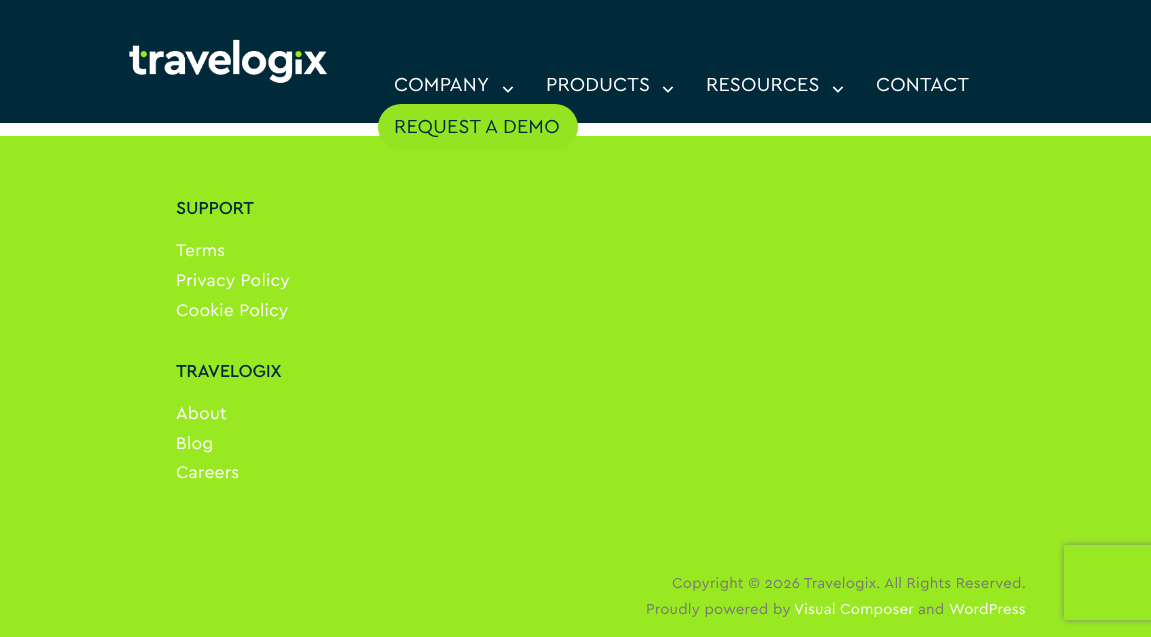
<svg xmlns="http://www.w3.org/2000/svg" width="1151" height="637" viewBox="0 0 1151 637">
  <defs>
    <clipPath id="clip1"><path d="M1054 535H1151V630H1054ZM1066.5 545H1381.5C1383 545 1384 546 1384 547.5V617.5C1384 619 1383 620 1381.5 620H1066.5C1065 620 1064 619 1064 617.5V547.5C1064 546 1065 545 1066.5 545Z" clip-rule="evenodd"/></clipPath>
  </defs>
  <rect width="100%" height="100%" fill="rgb(255,255,255)"/>
  <rect x="0" y="0" width="1151" height="123" fill="rgb(0,42,58)"/>
  <image x="129" y="39" width="198" height="44" href="pic1.png"/>
  <text x="394" y="91" font-family="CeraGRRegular" font-size="19.75" letter-spacing="0.2" fill="rgb(255,255,255)">COMPANY</text>
  <image x="502" y="86" width="12" height="7" href="pic2.png"/>
  <text x="546" y="91" font-family="CeraGRRegular" font-size="19.75" letter-spacing="0.2" fill="rgb(255,255,255)">PRODUCTS</text>
  <image x="662" y="86" width="12" height="7" href="pic2.png"/>
  <text x="706" y="91" font-family="CeraGRRegular" font-size="19.75" letter-spacing="0.2" fill="rgb(255,255,255)">RESOURCES</text>
  <image x="832" y="86" width="12" height="7" href="pic2.png"/>
  <text x="876" y="91" font-family="CeraGRRegular" font-size="19.75" letter-spacing="0.2" fill="rgb(255,255,255)">CONTACT</text>
  <rect x="0" y="136" width="1151" height="501" fill="rgb(153,233,34)"/>
  <rect x="378" y="104" width="200" height="46" rx="23" fill="rgb(148,228,33)"/>
  <text x="394" y="133" font-family="CeraGRRegular" font-size="19.75" letter-spacing="0.2" fill="rgb(0,42,58)">REQUEST A DEMO</text>
  <text x="176" y="214" font-family="CeraGRRegular" font-size="17.5" font-weight="bold" letter-spacing="0.2" fill="rgb(0,42,58)">SUPPORT</text>
  <g font-family="CeraGRRegular" font-size="17.5" letter-spacing="0.2" fill="rgb(255,255,255)">
    <text>
      <tspan x="176" y="256">Terms</tspan>
      <tspan x="176" y="286">Privacy Policy</tspan>
      <tspan x="176" y="316">Cookie Policy</tspan>
    </text>
  </g>
  <text x="176" y="377" font-family="CeraGRRegular" font-size="17.5" font-weight="bold" letter-spacing="0.2" fill="rgb(0,42,58)">TRAVELOGIX</text>
  <g font-family="CeraGRRegular" font-size="17.5" letter-spacing="0.2" fill="rgb(255,255,255)">
    <text>
      <tspan x="176" y="419">About</tspan>
      <tspan x="176" y="449">Blog</tspan>
      <tspan x="176" y="478">Careers</tspan>
    </text>
  </g>
  <g font-family="CeraGRRegular" font-size="15" letter-spacing="0.2" fill="rgb(119,119,119)">
    <text x="672" y="588">Copyright © 2026 Travelogix. All Rights Reserved.</text>
    <text x="646" y="614">Proudly powered by</text>
  </g>
  <text x="794" y="614" font-family="CeraGRRegular" font-size="15" letter-spacing="0.2" fill="rgb(255,255,255)">Visual Composer</text>
  <text x="918" y="614" font-family="CeraGRRegular" font-size="15" letter-spacing="0.2" fill="rgb(119,119,119)">and</text>
  <text x="949" y="614" font-family="CeraGRRegular" font-size="15" letter-spacing="0.2" fill="rgb(255,255,255)">WordPress</text>
  <g clip-path="url(#clip1)">
    <rect x="1064" y="545" width="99" height="75" rx="2.5" fill="rgb(128,128,128)" filter="blur(3px)"/>
  </g>
</svg>
